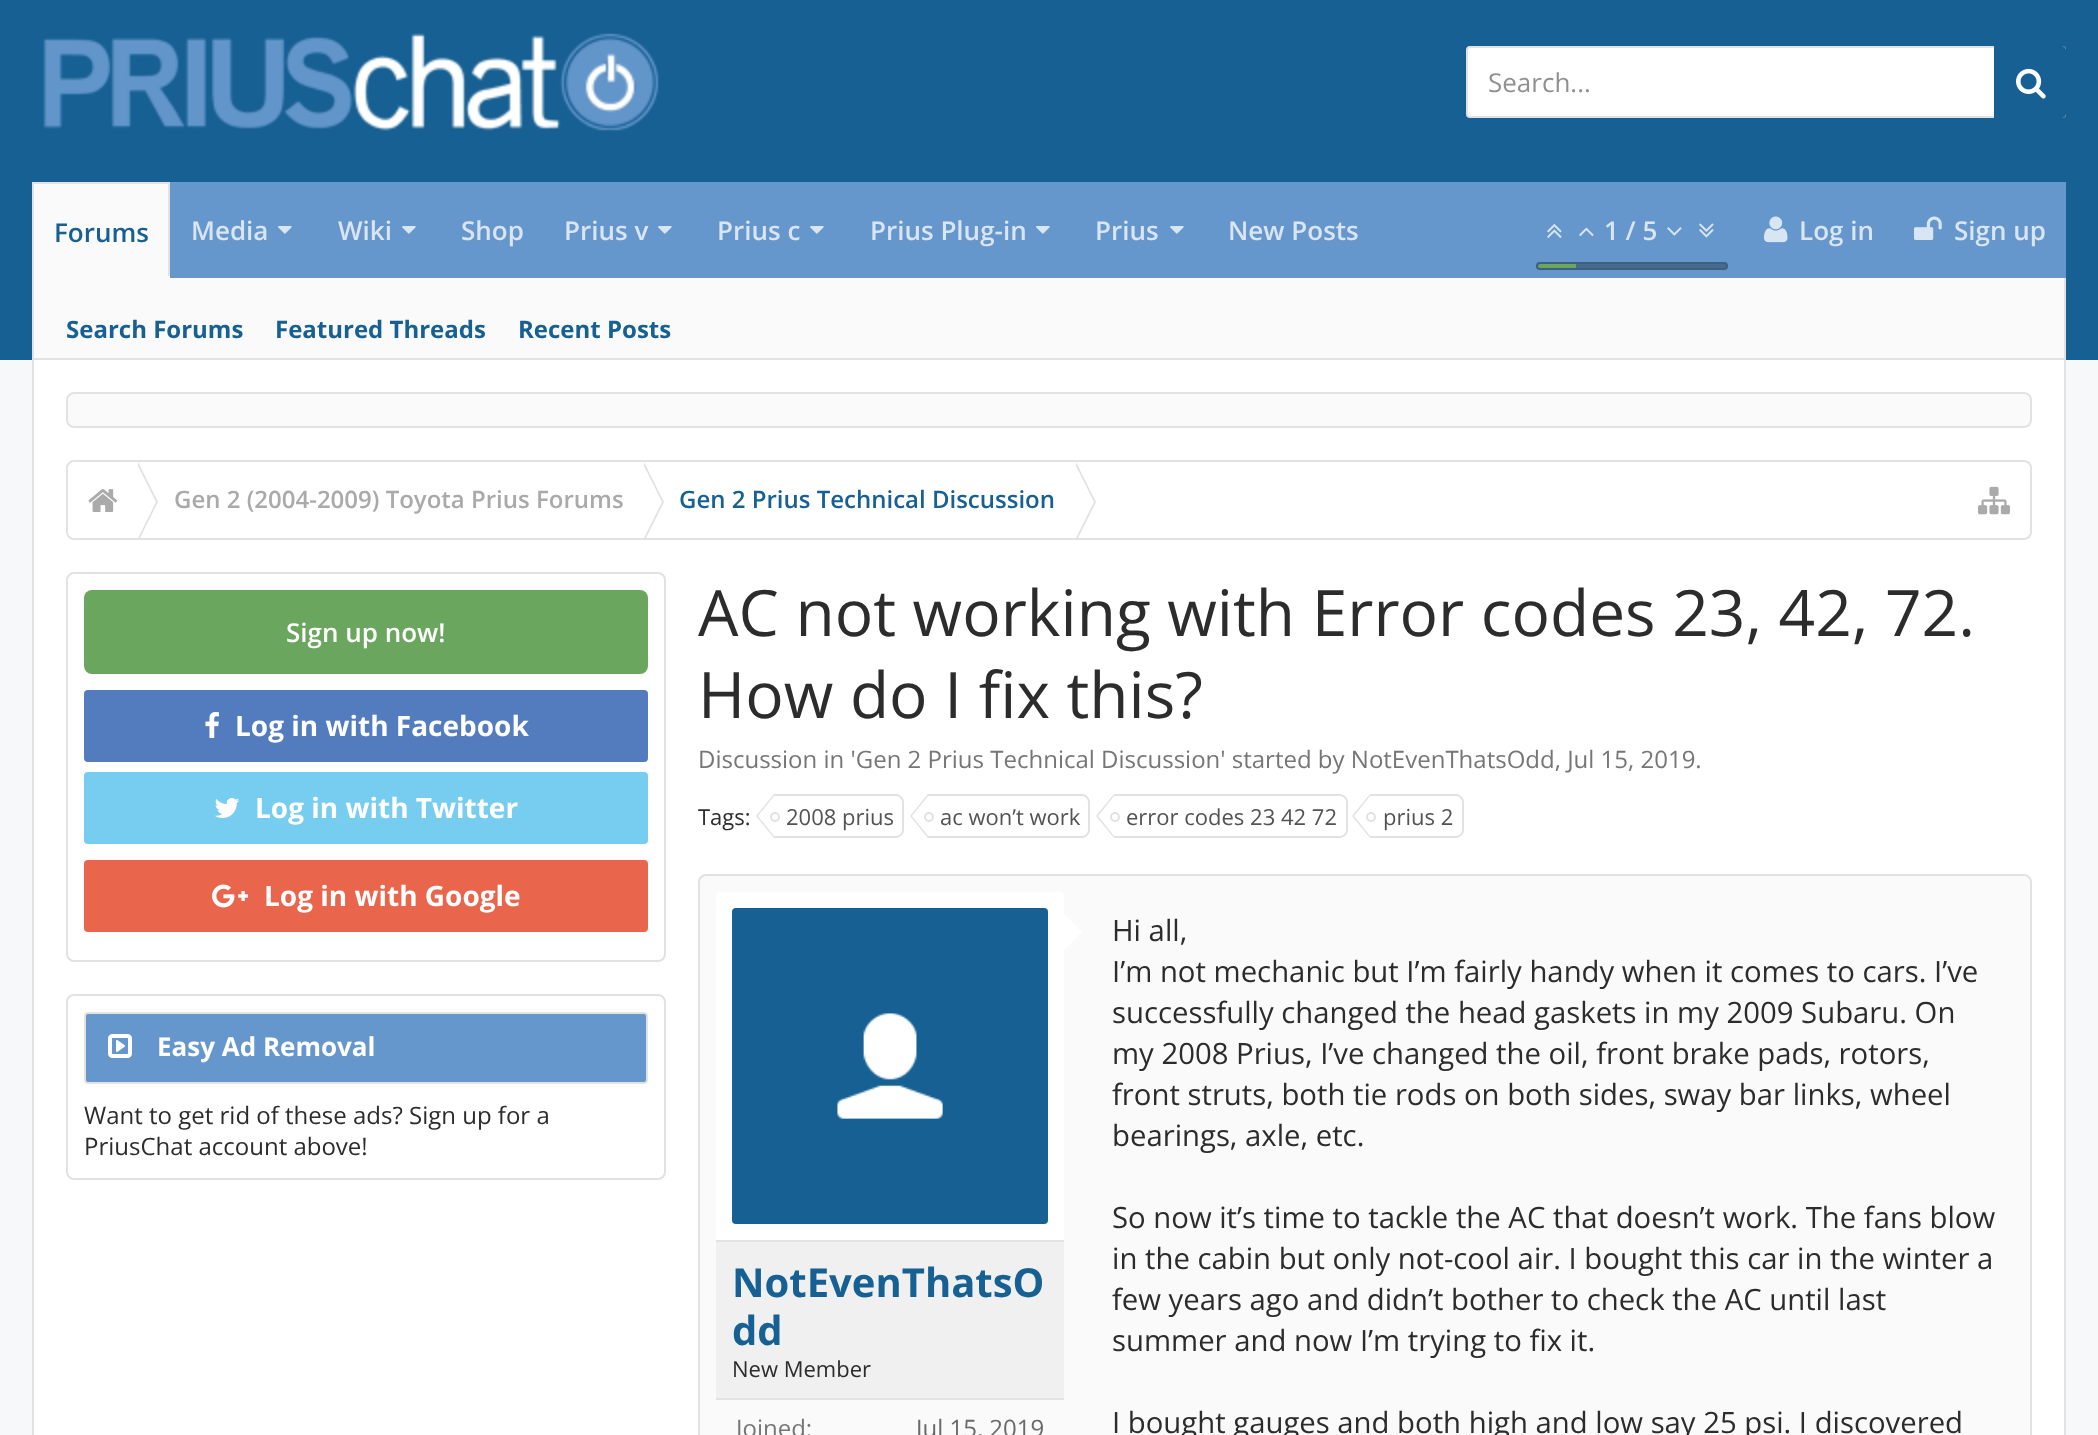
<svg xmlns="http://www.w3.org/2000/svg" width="2098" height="1435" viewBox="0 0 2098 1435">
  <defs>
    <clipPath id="clip1"><rect x="68" y="462" width="1962" height="76" rx="6"/></clipPath>
  </defs>
  <rect width="100%" height="100%" fill="rgb(246,248,249)"/>
  <rect x="0" y="0" width="2098" height="360" fill="rgb(23,96,147)"/>
  <image x="43" y="33" width="616" height="98" href="pic1.png"/>
  <rect x="1467" y="47" width="598" height="70" rx="3" fill="rgb(255,255,255)" stroke="rgb(226,226,226)" stroke-width="2"/>
  <text x="1488" y="92" font-family="Open Sans" font-size="26" fill="rgb(144,144,144)">Search...</text>
  <path d="M1994 46H2062C2064 46 2066 48 2066 50V114C2066 116 2064 118 2062 118H1994Z" fill="rgb(23,96,147)"/>
  <image x="2016" y="68" width="30" height="31" href="pic2.png"/>
  <rect x="170" y="182" width="1896" height="96" fill="rgb(101,151,204)"/>
  <text x="191" y="240" font-family="Open Sans" font-size="26" font-weight="600" fill="rgb(217,229,242)">Media</text>
  <image x="278" y="226" width="14" height="8" href="pic3.png"/>
  <text x="338" y="240" font-family="Open Sans" font-size="26" font-weight="600" fill="rgb(217,229,242)">Wiki</text>
  <image x="402" y="226" width="14" height="8" href="pic3.png"/>
  <g font-family="Open Sans" font-size="26" font-weight="600" fill="rgb(217,229,242)">
    <text x="461" y="240">Shop</text>
    <text x="564" y="240">Prius v</text>
  </g>
  <image x="658" y="226" width="14" height="8" href="pic3.png"/>
  <text x="717" y="240" font-family="Open Sans" font-size="26" font-weight="600" fill="rgb(217,229,242)">Prius c</text>
  <image x="810" y="226" width="14" height="8" href="pic3.png"/>
  <text x="870" y="240" font-family="Open Sans" font-size="26" font-weight="600" fill="rgb(217,229,242)">Prius Plug-in</text>
  <image x="1036" y="226" width="14" height="8" href="pic3.png"/>
  <text x="1095" y="240" font-family="Open Sans" font-size="26" font-weight="600" fill="rgb(217,229,242)">Prius</text>
  <image x="1170" y="226" width="14" height="8" href="pic3.png"/>
  <text x="1228" y="240" font-family="Open Sans" font-size="26" font-weight="600" fill="rgb(217,229,242)">New Posts</text>
  <rect x="34" y="184" width="134" height="92" fill="rgb(250,250,250)"/>
  <rect x="32" y="182" width="138" height="2" fill="rgb(226,226,226)"/>
  <rect x="168" y="182" width="2" height="96" fill="rgb(226,226,226)"/>
  <rect x="32" y="276" width="138" height="2" fill="rgb(250,250,250)"/>
  <rect x="32" y="182" width="2" height="96" fill="rgb(226,226,226)"/>
  <text x="54" y="242" font-family="Open Sans" font-size="26" font-weight="600" fill="rgb(23,96,147)">Forums</text>
  <rect x="34" y="278" width="2030" height="80" fill="rgb(250,250,250)"/>
  <rect x="2064" y="278" width="2" height="1157" fill="rgb(226,226,226)"/>
  <rect x="32" y="358" width="2034" height="2" fill="rgb(226,226,226)"/>
  <rect x="32" y="278" width="2" height="82" fill="rgb(226,226,226)"/>
  <g font-family="Open Sans" font-size="24" font-weight="bold" fill="rgb(23,96,147)">
    <text x="66" y="338">Search Forums</text>
    <text x="275" y="338">Featured Threads</text>
    <text x="518" y="338">Recent Posts</text>
  </g>
  <image x="1547" y="224" width="15" height="14" href="pic4.png"/>
  <image x="1579" y="227" width="15" height="9" href="pic5.png"/>
  <text x="1604" y="240" font-family="Open Sans" font-size="26" font-weight="600" fill="rgb(217,229,242)">1 / 5</text>
  <image x="1667" y="227" width="15" height="9" href="pic6.png"/>
  <image x="1699" y="223" width="15" height="15" href="pic7.png"/>
  <rect x="1536" y="262" width="192" height="8" rx="4" fill="rgb(71,106,143)"/>
  <rect x="1537" y="263" width="190" height="6" rx="3" fill="none" stroke="rgba(0,0,0,0.1)" stroke-width="2"/>
  <path d="M1540 264H1576V268H1540C1539 268 1538 267 1538 266C1538 265 1539 264 1540 264Z" fill="rgb(107,166,94)"/>
  <image x="1764" y="216" width="24" height="27" href="pic8.png"/>
  <text x="1799" y="240" font-family="Open Sans" font-size="26" font-weight="600" fill="rgb(217,229,242)">Log in</text>
  <image x="1914" y="216" width="28" height="24" href="pic9.png"/>
  <text x="1954" y="240" font-family="Open Sans" font-size="26" font-weight="600" fill="rgb(217,229,242)">Sign up</text>
  <rect x="34" y="360" width="2030" height="1075" fill="rgb(255,255,255)"/>
  <rect x="32" y="360" width="2" height="1075" fill="rgb(226,226,226)"/>
  <rect x="67" y="393" width="1964" height="34" rx="7" fill="rgb(250,250,250)" stroke="rgb(226,226,226)" stroke-width="2"/>
  <rect x="67" y="461" width="1964" height="78" rx="7" fill="none" stroke="rgb(226,226,226)" stroke-width="2"/>
  <g clip-path="url(#clip1)">
    <path d="M76 462H138V540H76C71.5 540 68 536.5 68 532V470C68 465.5 71.5 462 76 462Z" fill="rgb(255,255,255)"/>
  </g>
  <image x="88" y="489" width="30" height="23" href="pic10.png"/>
  <path d="M140 538H138V462L158 502Z" fill="rgb(226,226,226)"/>
  <path d="M138 538H136V462L156 502Z" fill="rgb(255,255,255)"/>
  <text x="174" y="508" font-family="Open Sans" font-size="24" font-weight="600" fill="rgb(170,170,170)">Gen 2 (2004-2009) Toyota Prius Forums</text>
  <path d="M646 538H644V462L664 502Z" fill="rgb(226,226,226)"/>
  <path d="M644 538H642V462L662 502Z" fill="rgb(255,255,255)"/>
  <text x="679" y="508" font-family="Open Sans" font-size="24" font-weight="600" fill="rgb(23,96,147)">Gen 2 Prius Technical Discussion</text>
  <path d="M1078 538H1076V462L1096 502Z" fill="rgb(226,226,226)"/>
  <path d="M1076 538H1074V462L1094 502Z" fill="rgb(255,255,255)"/>
  <image x="1978" y="486" width="32" height="29" href="pic11.png"/>
  <rect x="67" y="573" width="598" height="388" rx="7" fill="none" stroke="rgb(226,226,226)" stroke-width="2"/>
  <rect x="84" y="590" width="564" height="84" rx="8" fill="rgb(107,166,94)"/>
  <text x="286" y="642" font-family="Open Sans" font-size="26" font-weight="600" fill="rgb(255,255,255)">Sign up now!</text>
  <rect x="84" y="690" width="564" height="72" rx="4" fill="rgb(83,124,190)"/>
  <image x="205" y="712" width="14" height="26" href="pic12.png"/>
  <text x="235" y="736" font-family="Open Sans" font-size="28" font-weight="bold" fill="rgb(255,255,255)">Log in with Facebook</text>
  <rect x="84" y="772" width="564" height="72" rx="4" fill="rgb(119,205,240)"/>
  <image x="215" y="798" width="25" height="20" href="pic13.png"/>
  <text x="255" y="818" font-family="Open Sans" font-size="28" font-weight="bold" fill="rgb(255,255,255)">Log in with Twitter</text>
  <rect x="84" y="860" width="564" height="72" rx="4" fill="rgb(233,101,76)"/>
  <image x="212" y="884" width="36" height="24" href="pic14.png"/>
  <text x="264" y="906" font-family="Open Sans" font-size="28" font-weight="bold" fill="rgb(255,255,255)">Log in with Google</text>
  <rect x="67" y="995" width="598" height="184" rx="7" fill="none" stroke="rgb(226,226,226)" stroke-width="2"/>
  <rect x="85" y="1013" width="562" height="70" rx="3" fill="rgb(101,151,204)" stroke="rgb(226,226,226)" stroke-width="2"/>
  <image x="108" y="1034" width="24" height="24" href="pic15.png"/>
  <text x="157" y="1056" font-family="Open Sans" font-size="26" font-weight="bold" fill="rgb(255,255,255)">Easy Ad Removal</text>
  <g font-family="Open Sans" font-size="24" fill="rgb(44,44,44)">
    <text>
      <tspan x="84" y="1124">Want to get rid of these ads? Sign up for a</tspan>
      <tspan x="84" y="1155">PriusChat account above!</tspan>
    </text>
  </g>
  <g font-family="Open Sans" font-size="64" fill="rgb(44,44,44)">
    <text>
      <tspan x="698" y="636">AC not working with Error codes 23, 42, 72.</tspan>
      <tspan x="698" y="718">How do I fix this?</tspan>
    </text>
  </g>
  <text x="698" y="768" font-family="Open Sans" font-size="24" fill="rgb(118,118,118)">Discussion in 'Gen 2 Prius Technical Discussion' started by NotEvenThatsOdd, Jul 15, 2019.</text>
  <text x="698" y="825" font-family="Open Sans" font-size="22" fill="rgb(44,44,44)">Tags:</text>
  <path d="M774 794H896C900 794 904 798 904 802V830C904 834 900 838 896 838H774ZM774 796H896C899 796 902 799 902 802V830C902 833 899 836 896 836H774Z" fill="rgb(226,226,226)" fill-rule="evenodd"/>
  <path d="M774 794V838L756 816Z" fill="rgb(226,226,226)"/>
  <path d="M774 796V836L758 816Z" fill="rgb(255,255,255)"/>
  <circle cx="775" cy="817" r="4" fill="none" stroke="rgb(226,226,226)" stroke-width="2"/>
  <text x="786" y="825" font-family="Open Sans" font-size="22" fill="rgb(83,83,83)">2008 prius</text>
  <path d="M928 794H1082C1086 794 1090 798 1090 802V830C1090 834 1086 838 1082 838H928ZM928 796H1082C1085 796 1088 799 1088 802V830C1088 833 1085 836 1082 836H928Z" fill="rgb(226,226,226)" fill-rule="evenodd"/>
  <path d="M928 794V838L910 816Z" fill="rgb(226,226,226)"/>
  <path d="M928 796V836L912 816Z" fill="rgb(255,255,255)"/>
  <circle cx="929" cy="817" r="4" fill="none" stroke="rgb(226,226,226)" stroke-width="2"/>
  <text x="940" y="825" font-family="Open Sans" font-size="22" fill="rgb(83,83,83)">ac won’t work</text>
  <path d="M1114 794H1340C1344 794 1348 798 1348 802V830C1348 834 1344 838 1340 838H1114ZM1114 796H1340C1343 796 1346 799 1346 802V830C1346 833 1343 836 1340 836H1114Z" fill="rgb(226,226,226)" fill-rule="evenodd"/>
  <path d="M1114 794V838L1096 816Z" fill="rgb(226,226,226)"/>
  <path d="M1114 796V836L1098 816Z" fill="rgb(255,255,255)"/>
  <circle cx="1115" cy="817" r="4" fill="none" stroke="rgb(226,226,226)" stroke-width="2"/>
  <text x="1126" y="825" font-family="Open Sans" font-size="22" fill="rgb(83,83,83)">error codes 23 42 72</text>
  <path d="M1370 794H1456C1460 794 1464 798 1464 802V830C1464 834 1460 838 1456 838H1370ZM1370 796H1456C1459 796 1462 799 1462 802V830C1462 833 1459 836 1456 836H1370Z" fill="rgb(226,226,226)" fill-rule="evenodd"/>
  <path d="M1370 794V838L1352 816Z" fill="rgb(226,226,226)"/>
  <path d="M1370 796V836L1354 816Z" fill="rgb(255,255,255)"/>
  <circle cx="1371" cy="817" r="4" fill="none" stroke="rgb(226,226,226)" stroke-width="2"/>
  <text x="1383" y="825" font-family="Open Sans" font-size="22" fill="rgb(83,83,83)">prius 2</text>
  <rect x="699" y="875" width="1332" height="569" rx="7" fill="rgb(250,250,250)" stroke="rgb(226,226,226)" stroke-width="2"/>
  <path d="M720 892H1060C1062 892 1064 894 1064 896V1240H716V896C716 894 718 892 720 892Z" fill="rgb(255,255,255)"/>
  <rect x="732" y="908" width="316" height="316" rx="4" fill="rgb(23,96,147)"/>
  <image x="837" y="1013" width="106" height="106" href="pic16.png"/>
  <path d="M1062 952V912L1082 932Z" fill="rgb(255,255,255)"/>
  <rect x="716" y="1242" width="348" height="156" fill="rgb(240,240,240)"/>
  <rect x="716" y="1240" width="348" height="2" fill="rgb(226,226,226)"/>
  <rect x="716" y="1398" width="348" height="2" fill="rgb(226,226,226)"/>
  <g font-family="Open Sans" font-size="40" font-weight="bold" fill="rgb(23,96,147)">
    <text>
      <tspan x="732" y="1297">NotEvenThatsO</tspan>
      <tspan x="732" y="1345">dd</tspan>
    </text>
  </g>
  <text x="732" y="1377" font-family="Open Sans" font-size="22" fill="rgb(44,44,44)">New Member</text>
  <text x="736" y="1437" font-family="Open Sans" font-size="24" fill="rgb(118,118,118)">Joined:</text>
  <text x="916" y="1437" font-family="Open Sans" font-size="24" fill="rgb(106,106,106)">Jul 15, 2019</text>
  <g font-family="Open Sans" font-size="29.3" fill="rgb(44,44,44)">
    <text>
      <tspan x="1112" y="941">Hi all,</tspan>
      <tspan x="1112" y="982">I’m not mechanic but I’m fairly handy when it comes to cars. I’ve</tspan>
      <tspan x="1112" y="1023">successfully changed the head gaskets in my 2009 Subaru. On</tspan>
      <tspan x="1112" y="1064">my 2008 Prius, I’ve changed the oil, front brake pads, rotors,</tspan>
      <tspan x="1112" y="1105">front struts, both tie rods on both sides, sway bar links, wheel</tspan>
      <tspan x="1112" y="1146">bearings, axle, etc.</tspan>
    </text>
    <text>
      <tspan x="1112" y="1228">So now it’s time to tackle the AC that doesn’t work. The fans blow</tspan>
      <tspan x="1112" y="1269">in the cabin but only not-cool air. I bought this car in the winter a</tspan>
      <tspan x="1112" y="1310">few years ago and didn’t bother to check the AC until last</tspan>
      <tspan x="1112" y="1351">summer and now I’m trying to fix it.</tspan>
    </text>
    <text x="1112" y="1433">I bought gauges and both high and low say 25 psi. I discovered</text>
  </g>
</svg>
